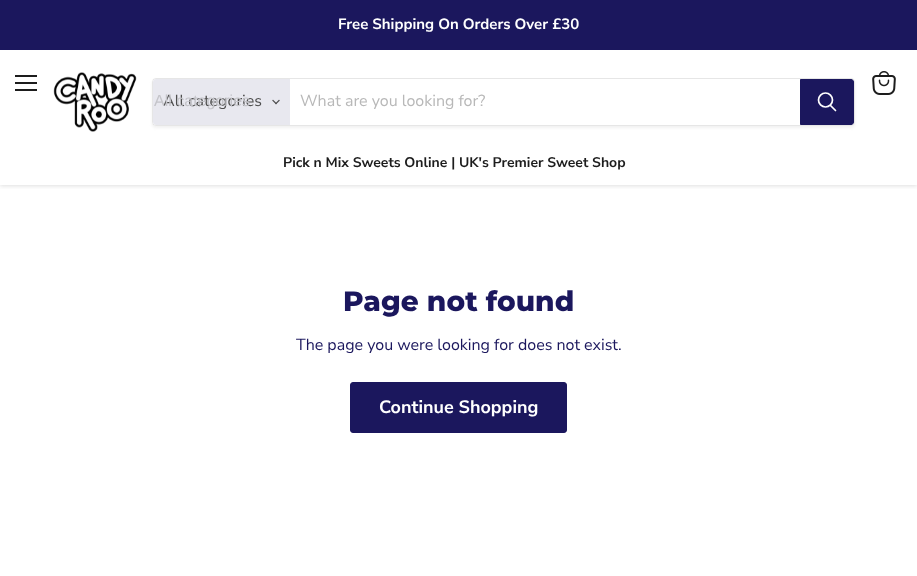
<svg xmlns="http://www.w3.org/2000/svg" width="917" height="576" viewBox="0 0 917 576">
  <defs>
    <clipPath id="clip1"><rect x="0" y="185" width="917" height="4"/></clipPath>
    <clipPath id="clip2"><path d="M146 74H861V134H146ZM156 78H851C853 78 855 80 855 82V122C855 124 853 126 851 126H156C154 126 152 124 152 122V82C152 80 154 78 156 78Z" clip-rule="evenodd"/></clipPath>
  </defs>
  <rect width="100%" height="100%" fill="rgb(255,255,255)"/>
  <g clip-path="url(#clip1)">
    <rect x="0" y="51" width="917" height="135" fill="rgba(128,128,128,0.25)" filter="blur(2px)"/>
  </g>
  <rect x="0" y="0" width="917" height="50" fill="rgb(27,23,93)"/>
  <text x="338" y="29" font-family="Nunito Sans" font-size="15" font-weight="bold" fill="rgb(255,255,255)">Free Shipping On Orders Over £30</text>
  <rect x="15" y="75" width="22" height="2" fill="rgb(29,29,29)"/>
  <rect x="15" y="82" width="22" height="2" fill="rgb(29,29,29)"/>
  <rect x="15" y="89" width="22" height="2" fill="rgb(29,29,29)"/>
  <image x="872" y="71" width="24" height="24" href="pic1.png"/>
  <image x="53" y="72" width="84" height="60" href="pic2.png"/>
  <g clip-path="url(#clip2)">
    <rect x="152" y="80" width="703" height="48" rx="4" fill="rgba(128,128,128,0.11)" filter="blur(1.5px)"/>
  </g>
  <rect x="152.5" y="78.5" width="702" height="47" rx="3.5" fill="none" stroke="rgba(128,128,128,0.2)"/>
  <path d="M156 79H290V125H156C154.5 125 153 123.5 153 122V82C153 80.5 154.5 79 156 79Z" fill="rgb(232,232,239)"/>
  <text x="163" y="106" font-family="Nunito Sans" font-size="16" fill="rgb(77,77,77)">All categories</text>
  <text x="154" y="106" font-family="Liberation Sans" font-size="16" fill="rgb(196,196,201)">All categories</text>
  <image x="272" y="99" width="8" height="6" href="pic3.png"/>
  <text x="300" y="106" font-family="Nunito Sans" font-size="16" fill="rgb(184,184,184)">What are you looking for?</text>
  <path d="M800.5 79.5H851C852.5 79.5 853.5 80.5 853.5 82V122C853.5 123.5 852.5 124.5 851 124.5H800.5Z" fill="rgb(27,23,93)" stroke="rgb(27,23,93)"/>
  <path d="M835.5 110.5L830.5 105.5" fill="none" stroke="rgb(255,255,255)" stroke-width="1.7" stroke-linecap="round"/>
  <circle cx="825.5" cy="100" r="7" fill="none" stroke="rgb(255,255,255)" stroke-width="1.7"/>
  <text x="283" y="167" font-family="Nunito Sans" font-size="14" font-weight="bold" fill="rgb(29,29,29)">Pick n Mix Sweets Online | UK's Premier Sweet Shop</text>
  <text x="343" y="311" font-family="Montserrat" font-size="28" font-weight="800" fill="rgb(27,23,93)">Page not found</text>
  <text x="296" y="350" font-family="Nunito Sans" font-size="16" fill="rgb(27,23,93)">The page you were looking for does not exist.</text>
  <rect x="350.5" y="382.5" width="216" height="50" rx="2.5" fill="rgb(27,23,93)" stroke="rgb(27,23,93)"/>
  <text x="379" y="413" font-family="Nunito Sans" font-size="18" font-weight="bold" fill="rgb(255,255,255)">Continue Shopping</text>
</svg>
